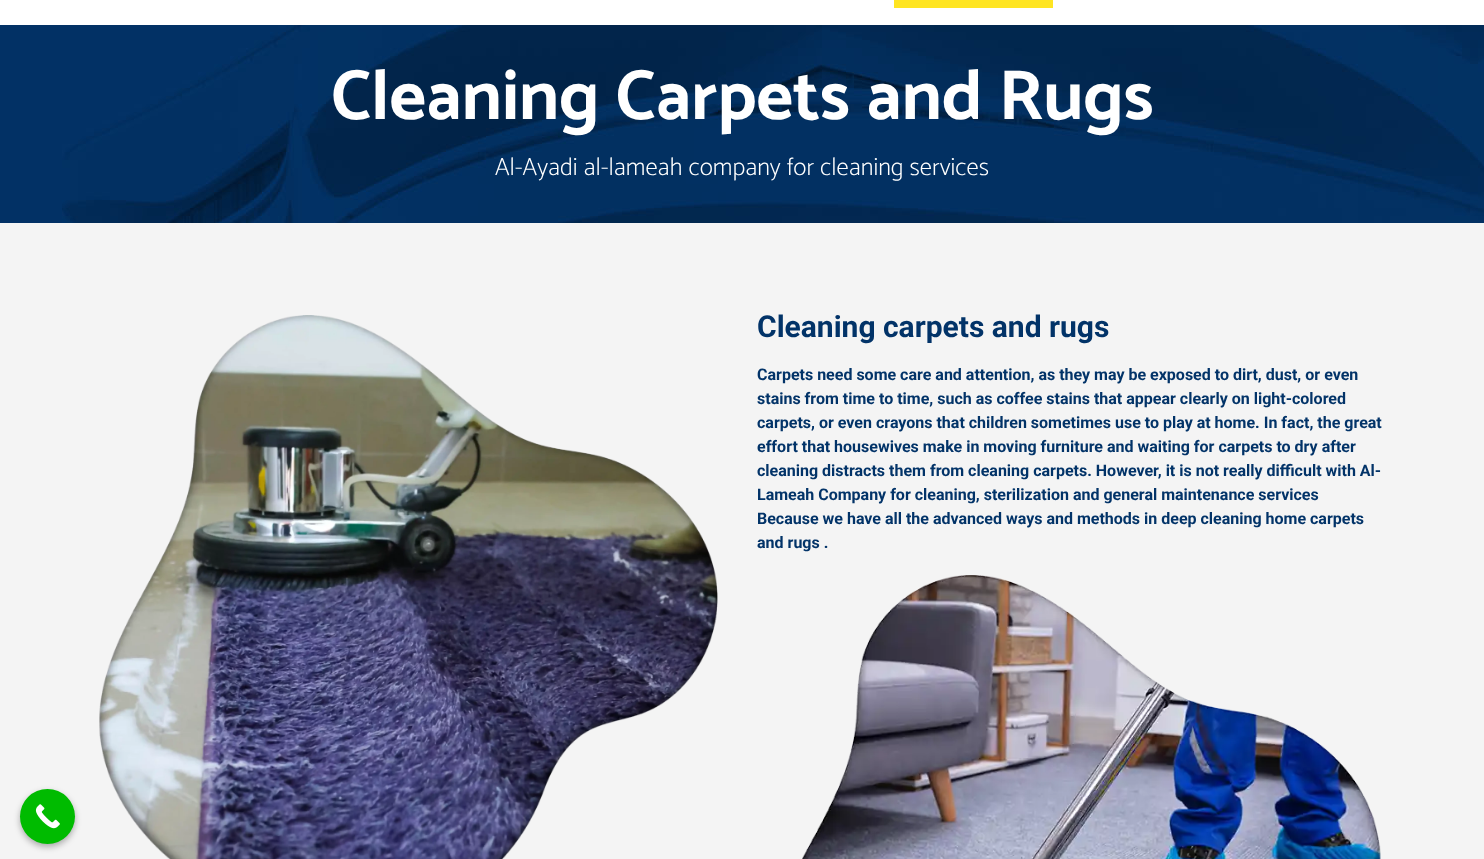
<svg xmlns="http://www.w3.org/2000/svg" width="1484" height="859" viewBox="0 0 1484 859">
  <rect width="100%" height="100%" fill="rgb(244,244,244)"/>
  <rect x="0" y="0" width="1484" height="25" fill="rgb(255,255,255)"/>
  <rect x="894" y="0" width="159" height="8" fill="rgb(255,229,34)"/>
  <image x="0" y="25" width="1484" height="198" href="pic1.png"/>
  <text x="331" y="119" font-family="Catamaran" font-size="71" font-weight="bold" fill="rgb(255,255,255)">Cleaning Carpets and Rugs</text>
  <text x="495" y="175" font-family="Catamaran" font-size="25" font-weight="200" fill="rgb(255,255,255)">Al-Ayadi al-lameah company for cleaning services</text>
  <image x="99" y="315" width="619" height="544" href="pic2.png"/>
  <text x="757" y="337" font-family="Roboto" font-size="30" font-weight="bold" fill="rgb(2,51,104)">Cleaning carpets and rugs</text>
  <g font-family="Roboto" font-size="16" font-weight="bold" fill="rgb(2,51,104)">
    <text>
      <tspan x="757" y="380">Carpets need some care and attention, as they may be exposed to dirt, dust, or even</tspan>
      <tspan x="757" y="404">stains from time to time, such as coffee stains that appear clearly on light-colored</tspan>
      <tspan x="757" y="428">carpets, or even crayons that children sometimes use to play at home. In fact, the great</tspan>
      <tspan x="757" y="452">effort that housewives make in moving furniture and waiting for carpets to dry after</tspan>
      <tspan x="757" y="476">cleaning distracts them from cleaning carpets. However, it is not really difficult with Al-</tspan>
      <tspan x="757" y="500">Lameah Company for cleaning, sterilization and general maintenance services</tspan>
      <tspan x="757" y="524">Because we have all the advanced ways and methods in deep cleaning home carpets</tspan>
      <tspan x="757" y="548">and rugs .</tspan>
    </text>
  </g>
  <image x="802" y="575" width="579" height="284" href="pic3.png"/>
  <rect x="20" y="792" width="55" height="55" rx="27.5" fill="rgba(0,0,0,0.3)" filter="blur(3px)"/>
  <circle cx="47.5" cy="816.5" r="27.5" fill="rgb(0,187,0)"/>
  <image x="35" y="804" width="25" height="25" href="pic4.png"/>
</svg>
